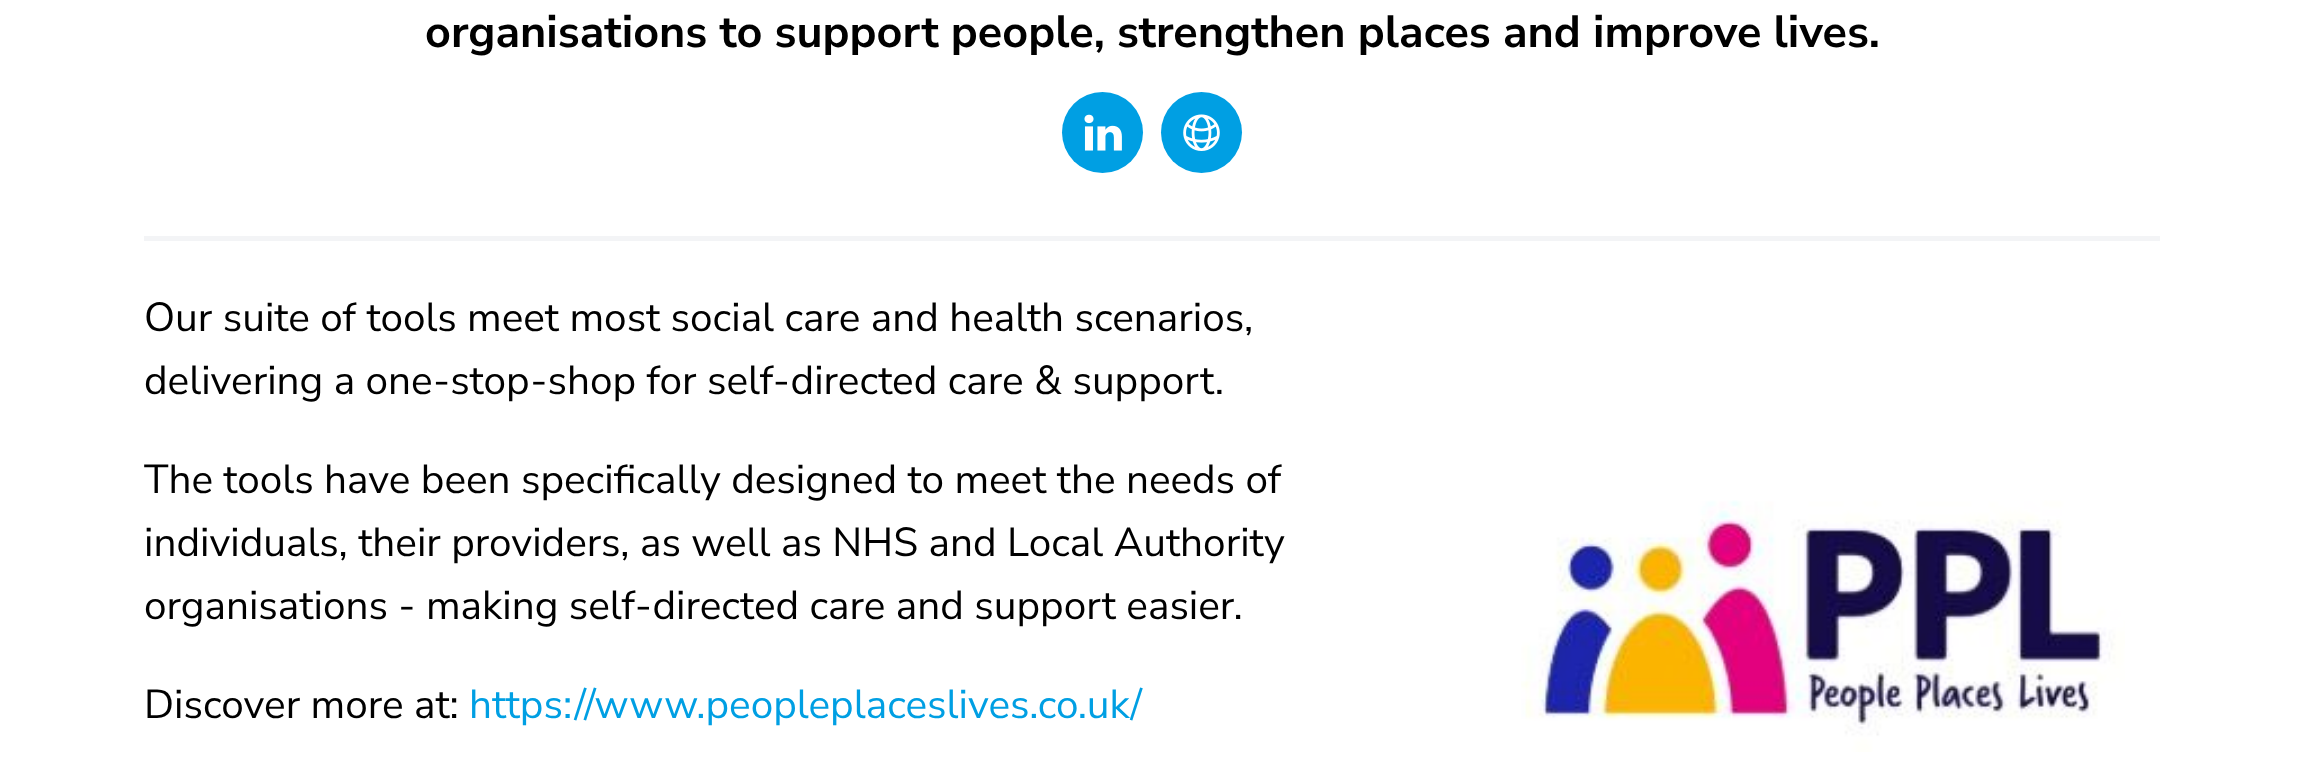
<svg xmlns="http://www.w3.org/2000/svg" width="2304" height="783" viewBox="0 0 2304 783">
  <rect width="100%" height="100%" fill="rgb(255,255,255)"/>
  <rect x="144" y="236" width="2016" height="5" fill="rgb(243,244,246)"/>
  <text x="425" y="47" font-family="Nunito Sans" font-size="45" font-weight="bold" fill="rgb(0,0,0)">organisations to support people, strengthen places and improve lives.</text>
  <circle cx="1102.5" cy="132.5" r="40.5" fill="rgb(0,159,227)"/>
  <image x="1084" y="114" width="38" height="37" href="pic1.png"/>
  <circle cx="1201.5" cy="132.5" r="40.5" fill="rgb(0,159,227)"/>
  <image x="1183" y="114" width="37" height="37" href="pic2.png"/>
  <g font-family="Nunito Sans" font-size="40.5" fill="rgb(0,0,0)">
    <text>
      <tspan x="144" y="331">Our suite of tools meet most social care and health scenarios,</tspan>
      <tspan x="144" y="394">delivering a one-stop-shop for self-directed care &amp; support.</tspan>
    </text>
    <text>
      <tspan x="144" y="493">The tools have been specifically designed to meet the needs of</tspan>
      <tspan x="144" y="556">individuals, their providers, as well as NHS and Local Authority</tspan>
      <tspan x="144" y="619">organisations - making self-directed care and support easier.</tspan>
    </text>
  </g>
  <image x="1521" y="500" width="604" height="252" href="pic3.png"/>
  <text x="144" y="718" font-family="Nunito Sans" font-size="40.5" fill="rgb(0,0,0)">Discover more at:</text>
  <text x="469" y="718" font-family="Nunito Sans" font-size="40.5" fill="rgb(0,159,227)">https://www.peopleplaceslives.co.uk/</text>
</svg>
